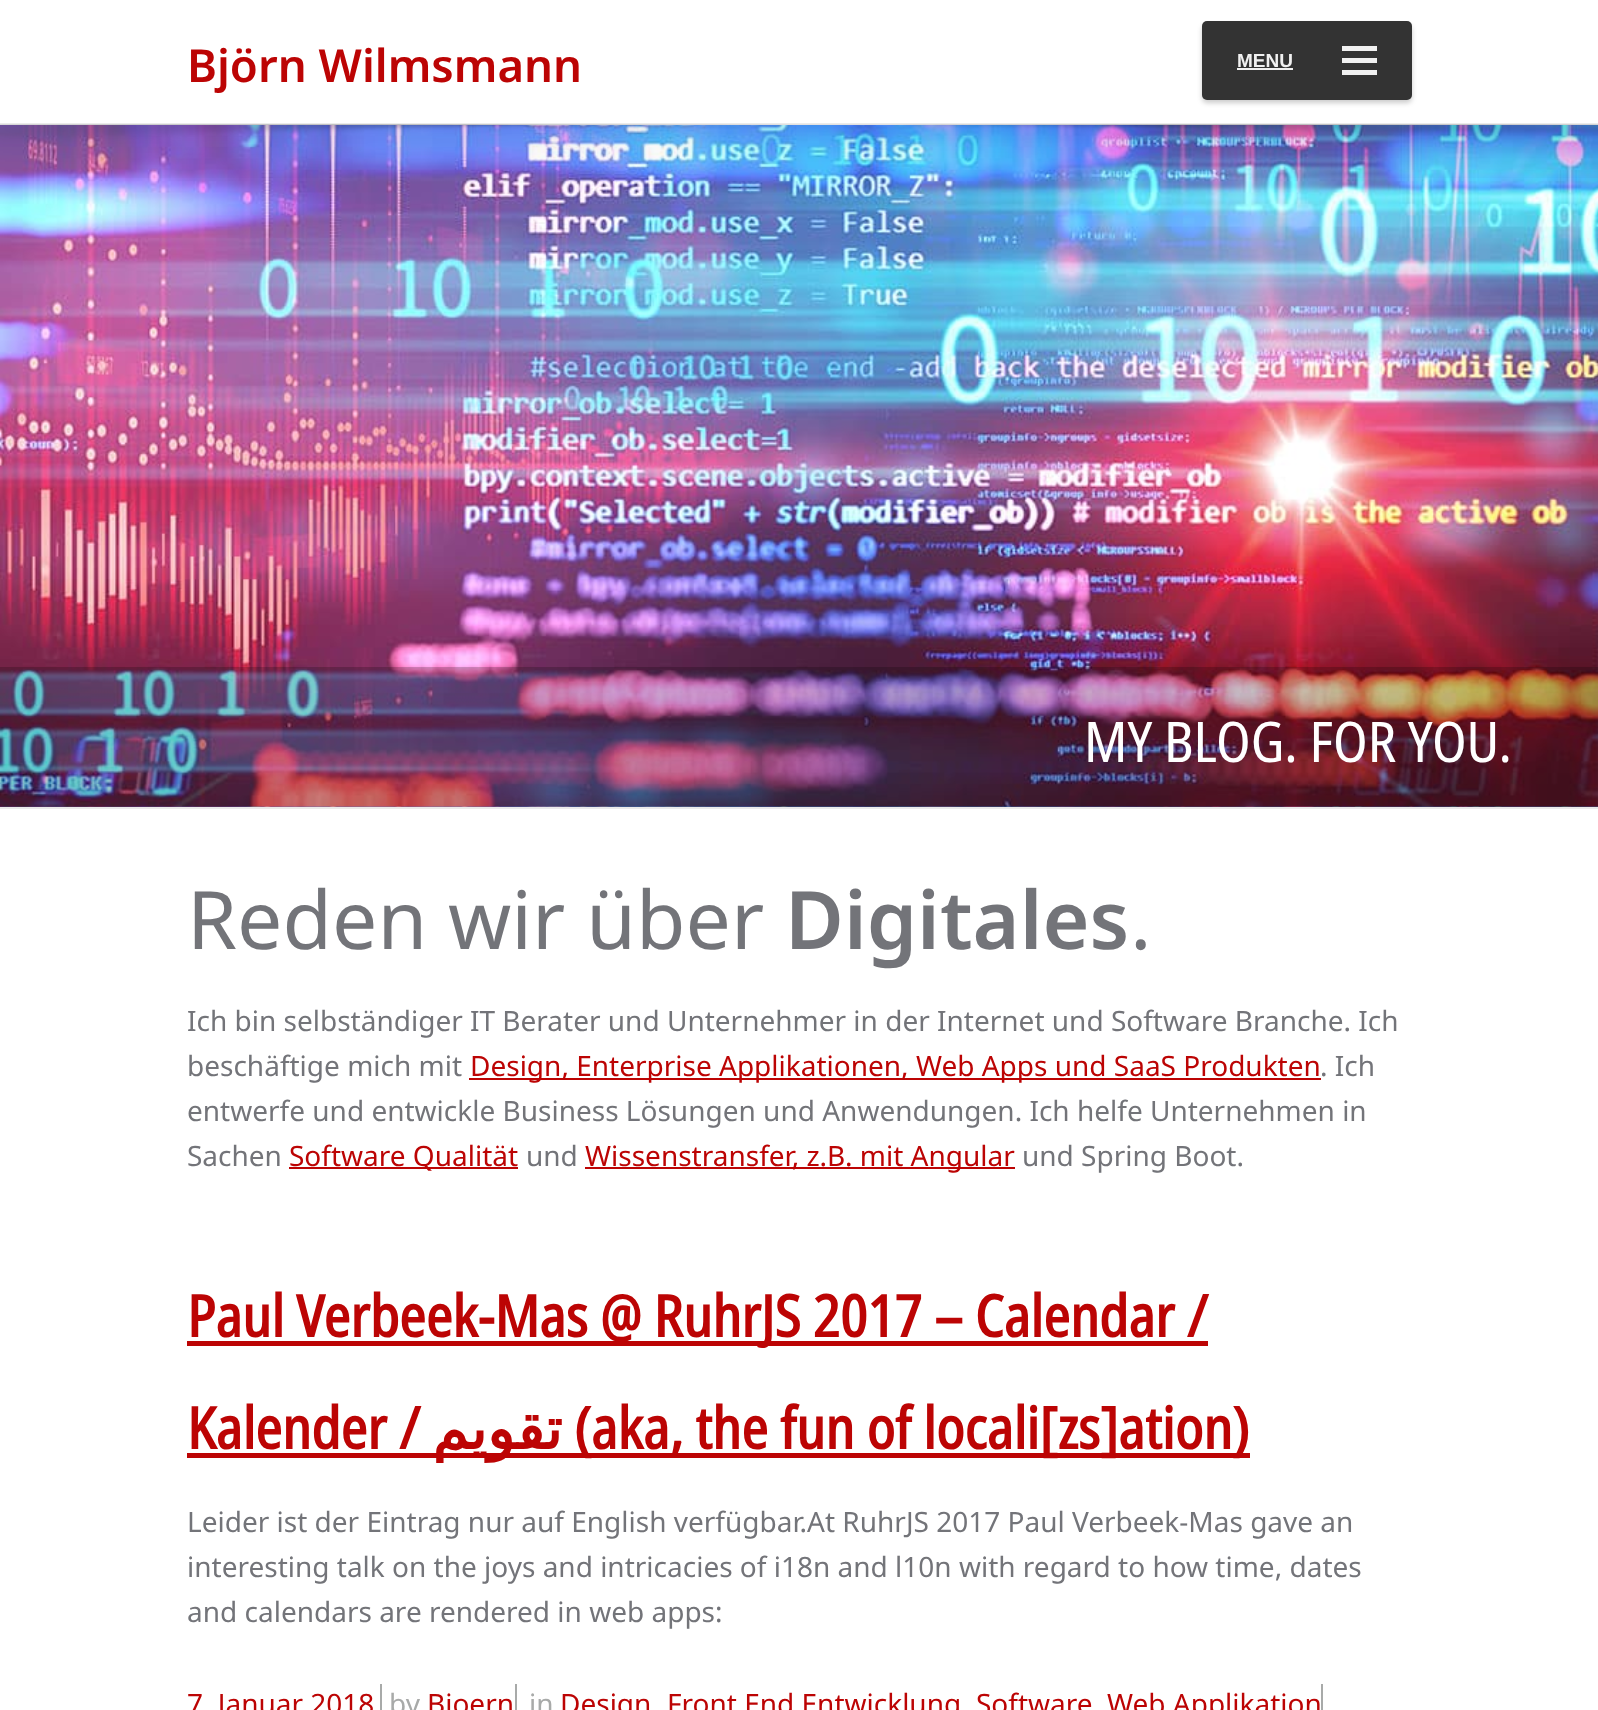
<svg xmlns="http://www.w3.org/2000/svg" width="1598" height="1710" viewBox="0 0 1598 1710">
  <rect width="100%" height="100%" fill="rgb(255,255,255)"/>
  <rect x="0" y="123" width="1598" height="2" fill="rgb(235,235,235)"/>
  <text x="187" y="82" font-family="Noto Sans" font-size="45.5" font-weight="600" fill="rgb(188,4,4)">Björn Wilmsmann</text>
  <rect x="1202" y="25" width="210" height="78" rx="5" fill="rgba(0,0,0,0.2)" filter="blur(2.5px)"/>
  <rect x="1202" y="21" width="210" height="79" rx="5" fill="rgb(51,51,51)"/>
  <text x="1237" y="67" font-family="Liberation Sans" font-size="19" font-weight="bold" fill="rgb(241,241,241)">MENU</text>
  <rect x="1237" y="68" width="56" height="2" fill="rgb(241,241,241)"/>
  <rect x="1342" y="46" width="35" height="5" fill="rgb(241,241,241)"/>
  <rect x="1342" y="58" width="35" height="5" fill="rgb(241,241,241)"/>
  <rect x="1342" y="70" width="35" height="5" fill="rgb(241,241,241)"/>
  <image x="0" y="125" width="1598" height="682" href="pic2.png"/>
  <image x="0" y="124" width="1598" height="54" href="pic1.png"/>
  <rect x="0" y="807" width="1598" height="2" fill="rgb(235,235,235)"/>
  <rect x="0" y="667" width="1598" height="140" fill="rgba(0,0,0,0.2)"/>
  <text x="1084" y="762" font-family="'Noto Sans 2'" font-size="56" fill="rgb(255,255,255)">MY BLOG. FOR YOU.</text>
  <text x="187" y="949" font-family="Noto Sans" font-size="80.5" fill="rgb(115,116,121)">Reden wir über</text>
  <text x="785" y="949" font-family="Noto Sans" font-size="80.5" font-weight="600" fill="rgb(115,116,121)">Digitales</text>
  <text x="1130" y="949" font-family="Noto Sans" font-size="80.5" fill="rgb(115,116,121)">.</text>
  <g font-family="Noto Sans" font-size="28" fill="rgb(115,116,121)">
    <text>
      <tspan x="187" y="1031">Ich bin selbständiger IT Berater und Unternehmer in der Internet und Software Branche. Ich</tspan>
      <tspan x="187" y="1076">beschäftige mich mit</tspan>
    </text>
  </g>
  <rect x="469" y="1078" width="852" height="2" fill="rgb(188,4,4)"/>
  <text x="470" y="1076" font-family="Noto Sans" font-size="28" fill="rgb(188,4,4)">Design, Enterprise Applikationen, Web Apps und SaaS Produkten</text>
  <g font-family="Noto Sans" font-size="28" fill="rgb(115,116,121)">
    <text x="1320" y="1076">. Ich</text>
    <text>
      <tspan x="187" y="1121">entwerfe und entwickle Business Lösungen und Anwendungen. Ich helfe Unternehmen in</tspan>
      <tspan x="187" y="1166">Sachen</tspan>
    </text>
  </g>
  <rect x="289" y="1167" width="229" height="2" fill="rgb(188,4,4)"/>
  <text x="289" y="1166" font-family="Noto Sans" font-size="28" fill="rgb(188,4,4)">Software Qualität</text>
  <text x="526" y="1166" font-family="Noto Sans" font-size="28" fill="rgb(115,116,121)">und</text>
  <rect x="585" y="1167" width="430" height="2" fill="rgb(188,4,4)"/>
  <text x="585" y="1166" font-family="Noto Sans" font-size="28" fill="rgb(188,4,4)">Wissenstransfer, z.B. mit Angular</text>
  <text x="1022" y="1166" font-family="Noto Sans" font-size="28" fill="rgb(115,116,121)">und Spring Boot.</text>
  <rect x="187" y="1341" width="1021" height="5" fill="rgb(188,4,4)"/>
  <g font-family="Noto Sans" font-size="57.75" font-weight="bold" fill="rgb(188,4,4)">
    <text>
      <tspan x="187" y="1337">Paul Verbeek-Mas @ RuhrJS 2017 – Calendar /</tspan>
      <tspan x="187" y="1449">Kalender /</tspan>
    </text>
  </g>
  <rect x="187" y="1453" width="1063" height="5" fill="rgb(188,4,4)"/>
  <text x="562" y="1449" font-family="DejaVu Sans" font-size="57.75" font-weight="bold" direction="rtl" fill="rgb(188,4,4)">تقويم</text>
  <text x="574" y="1449" font-family="Noto Sans" font-size="57.75" font-weight="bold" fill="rgb(188,4,4)">(aka, the fun of locali[zs]ation)</text>
  <g font-family="Noto Sans" font-size="28" fill="rgb(115,116,121)">
    <text>
      <tspan x="187" y="1532">Leider ist der Eintrag nur auf English verfügbar.At RuhrJS 2017 Paul Verbeek-Mas gave an</tspan>
      <tspan x="187" y="1577">interesting talk on the joys and intricacies of i18n and l10n with regard to how time, dates</tspan>
      <tspan x="187" y="1622">and calendars are rendered in web apps:</tspan>
    </text>
  </g>
  <text x="187" y="1714" font-family="Noto Sans" font-size="28" fill="rgb(188,4,4)">7. Januar 2018</text>
  <rect x="380" y="1684" width="2" height="26" fill="rgb(168,170,169)"/>
  <text x="389" y="1714" font-family="Noto Sans" font-size="28" fill="rgb(168,170,169)">by</text>
  <text x="427" y="1714" font-family="Noto Sans" font-size="28" fill="rgb(188,4,4)">Bjoern</text>
  <rect x="515" y="1684" width="2" height="26" fill="rgb(168,170,169)"/>
  <text x="529" y="1714" font-family="Noto Sans" font-size="28" fill="rgb(168,170,169)">in</text>
  <g font-family="Noto Sans" font-size="28" fill="rgb(188,4,4)">
    <text x="560" y="1714">Design</text>
    <text x="667" y="1714">Front End Entwicklung</text>
    <text x="976" y="1714">Software</text>
    <text x="1107" y="1714">Web Applikation</text>
  </g>
  <rect x="1321" y="1684" width="2" height="26" fill="rgb(168,170,169)"/>
</svg>
